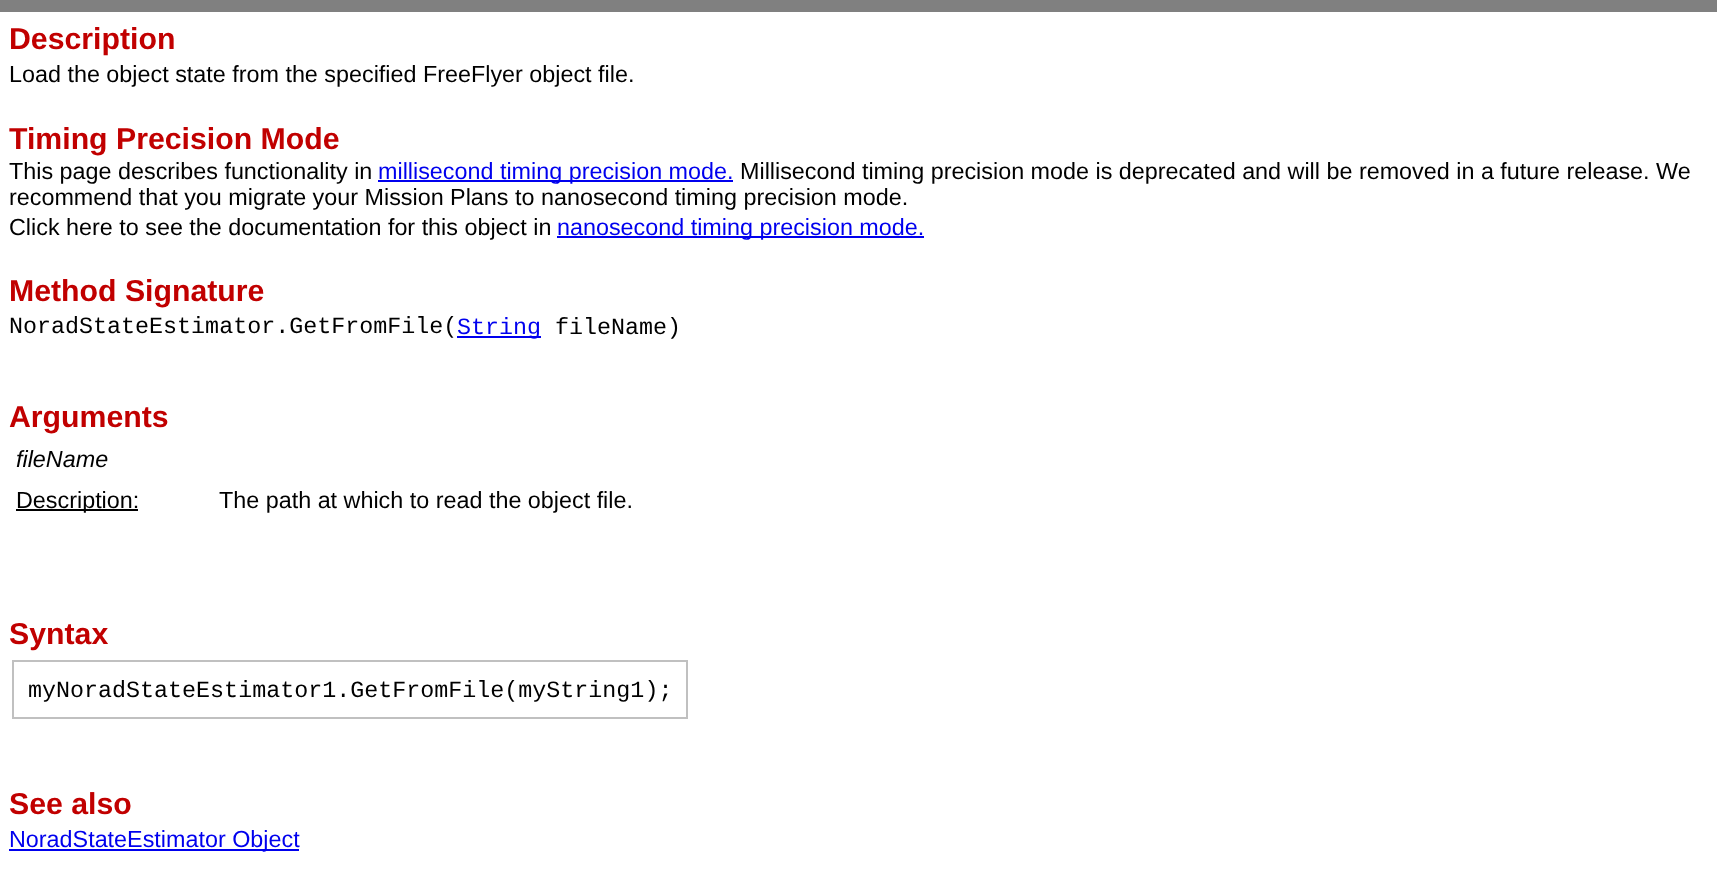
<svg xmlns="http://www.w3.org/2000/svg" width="1717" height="877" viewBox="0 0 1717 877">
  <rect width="100%" height="100%" fill="rgb(255,255,255)"/>
  <rect x="0" y="0" width="1717" height="12" fill="rgb(128,128,128)"/>
  <text x="9" y="49" font-family="Liberation Sans" font-size="30.25" font-weight="bold" fill="rgb(193,0,0)">Description</text>
  <text x="9" y="82" font-family="Liberation Sans" font-size="23.35" fill="rgb(0,0,0)">Load the object state from the specified FreeFlyer object file.</text>
  <text x="9" y="149" font-family="Liberation Sans" font-size="30.25" font-weight="bold" fill="rgb(193,0,0)">Timing Precision Mode</text>
  <text x="9" y="179" font-family="Liberation Sans" font-size="23.35" fill="rgb(0,0,0)">This page describes functionality in</text>
  <rect x="378" y="180" width="355" height="2" fill="rgb(0,0,238)"/>
  <text x="378" y="179" font-family="Liberation Sans" font-size="23.35" fill="rgb(0,0,238)">millisecond timing precision mode.</text>
  <g font-family="Liberation Sans" font-size="23.35" fill="rgb(0,0,0)">
    <text x="740" y="179">Millisecond timing precision mode is deprecated and will be removed in a future release. We</text>
    <text>
      <tspan x="9" y="205">recommend that you migrate your Mission Plans to nanosecond timing precision mode.</tspan>
      <tspan x="9" y="235">Click here to see the documentation for this object in</tspan>
    </text>
  </g>
  <rect x="557" y="236" width="367" height="2" fill="rgb(0,0,238)"/>
  <text x="557" y="235" font-family="Liberation Sans" font-size="23.35" fill="rgb(0,0,238)">nanosecond timing precision mode.</text>
  <text x="9" y="301" font-family="Liberation Sans" font-size="30.25" font-weight="bold" fill="rgb(193,0,0)">Method Signature</text>
  <text x="9" y="333" font-family="Liberation Mono" font-size="23.35" fill="rgb(0,0,0)">NoradStateEstimator.GetFromFile(</text>
  <rect x="457" y="336" width="84" height="2" fill="rgb(0,0,238)"/>
  <text x="457" y="334" font-family="Liberation Mono" font-size="23.35" fill="rgb(0,0,238)">String</text>
  <text x="555" y="334" font-family="Liberation Mono" font-size="23.35" fill="rgb(0,0,0)">fileName)</text>
  <text x="9" y="427" font-family="Liberation Sans" font-size="30.25" font-weight="bold" fill="rgb(193,0,0)">Arguments</text>
  <text x="16" y="467" font-family="Liberation Sans" font-size="23.35" font-style="italic" fill="rgb(0,0,0)">fileName</text>
  <rect x="16" y="509" width="122" height="2" fill="rgb(0,0,0)"/>
  <g font-family="Liberation Sans" font-size="23.35" fill="rgb(0,0,0)">
    <text x="16" y="508">Description:</text>
    <text x="219" y="508">The path at which to read the object file.</text>
  </g>
  <text x="9" y="644" font-family="Liberation Sans" font-size="30.25" font-weight="bold" fill="rgb(193,0,0)">Syntax</text>
  <rect x="13" y="661" width="674" height="57" fill="none" stroke="rgb(192,192,192)" stroke-width="2"/>
  <text x="28" y="697" font-family="Liberation Mono" font-size="23.35" fill="rgb(0,0,0)">myNoradStateEstimator1.GetFromFile(myString1);</text>
  <text x="9" y="814" font-family="Liberation Sans" font-size="30.25" font-weight="bold" fill="rgb(193,0,0)">See also</text>
  <rect x="9" y="849" width="290" height="2" fill="rgb(0,0,238)"/>
  <text x="9" y="847" font-family="Liberation Sans" font-size="23.35" fill="rgb(0,0,238)">NoradStateEstimator Object</text>
</svg>
